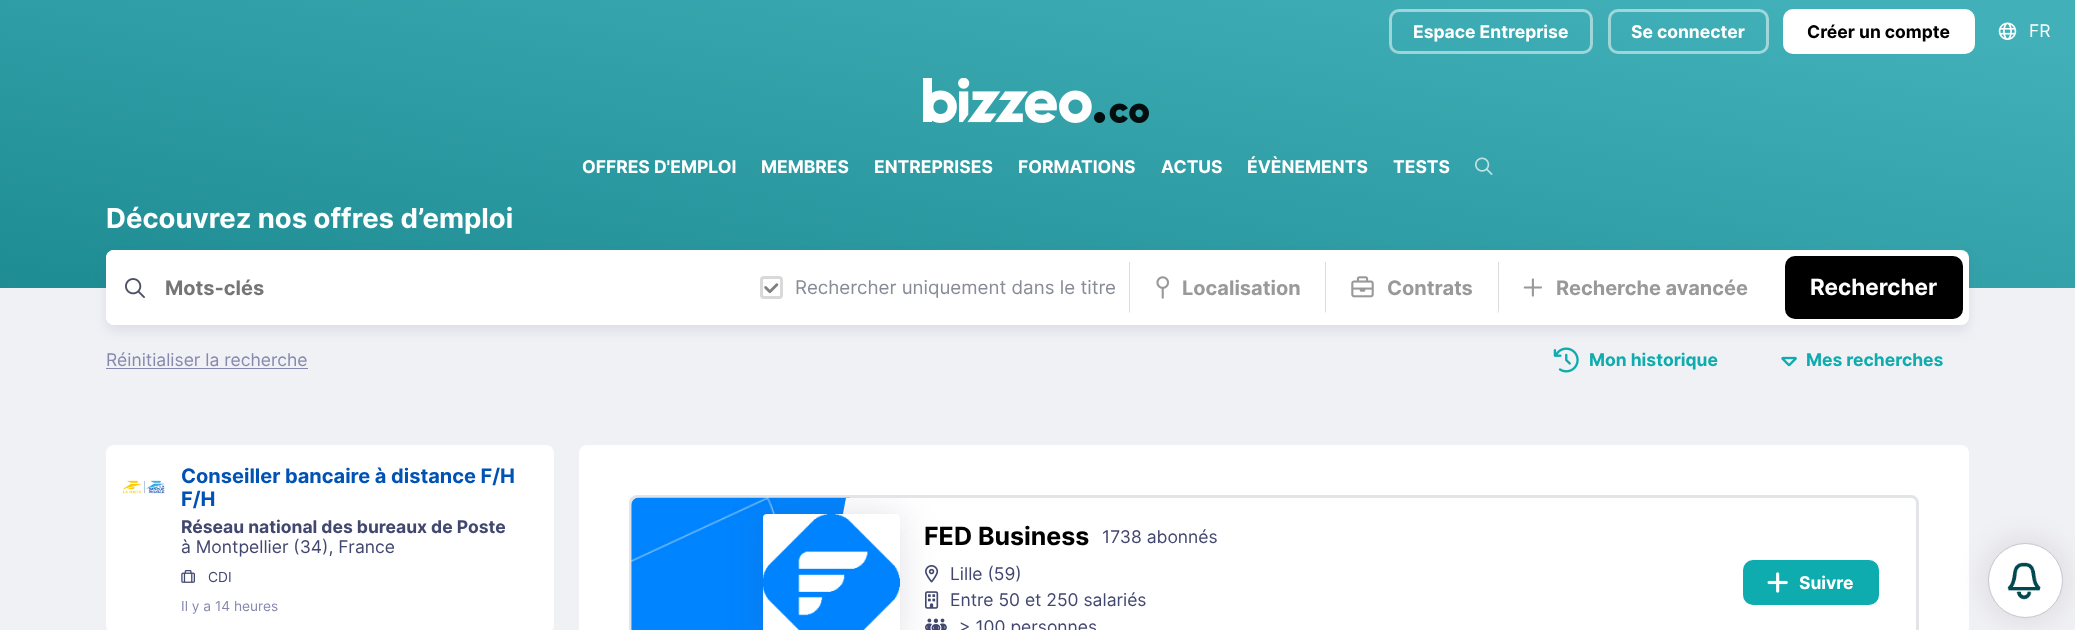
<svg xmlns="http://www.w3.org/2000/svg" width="2075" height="630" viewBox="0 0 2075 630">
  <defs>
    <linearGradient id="g1" gradientUnits="userSpaceOnUse" x1="932" y1="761" x2="1091" y2="-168"><stop offset="0" stop-color="rgb(12,121,128)"/><stop offset="0.95" stop-color="rgb(66,176,184)"/></linearGradient>
    <clipPath id="clip1"><rect x="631" y="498" width="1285" height="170" rx="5"/></clipPath>
  </defs>
  <rect width="100%" height="100%" fill="rgb(240,241,245)"/>
  <rect x="0" y="0" width="2075" height="288" fill="url(#g1)"/>
  <rect x="1390.5" y="10.5" width="201" height="42" rx="8.5" fill="none" stroke="rgba(255,255,255,0.5)" stroke-width="3"/>
  <text x="1413" y="38" font-family="Inter" font-size="17.5" font-weight="bold" fill="rgb(255,255,255)">Espace Entreprise</text>
  <rect x="1609.5" y="10.5" width="158" height="42" rx="8.5" fill="none" stroke="rgba(255,255,255,0.5)" stroke-width="3"/>
  <text x="1631" y="38" font-family="Inter" font-size="17.5" font-weight="bold" fill="rgb(255,255,255)">Se connecter</text>
  <rect x="1783" y="9" width="192" height="45" rx="10" fill="rgb(255,255,255)"/>
  <text x="1807" y="38" font-family="Inter" font-size="17.5" font-weight="bold" fill="rgb(0,0,0)">Créer un compte</text>
  <image x="1998" y="22" width="19" height="18" href="pic1.png"/>
  <text x="2029" y="37" font-family="Inter" font-size="17.5" fill="rgb(255,255,255)">FR</text>
  <image x="923" y="78" width="226" height="45" href="pic2.png"/>
  <g font-family="Inter" font-size="17.5" font-weight="bold" fill="rgb(255,255,255)">
    <text x="582" y="173">OFFRES D'EMPLOI</text>
    <text x="761" y="173">MEMBRES</text>
    <text x="874" y="173">ENTREPRISES</text>
    <text x="1018" y="173">FORMATIONS</text>
    <text x="1161" y="173">ACTUS</text>
    <text x="1247" y="173">ÉVÈNEMENTS</text>
    <text x="1393" y="173">TESTS</text>
  </g>
  <image x="1475" y="157" width="18" height="18" href="pic3.png"/>
  <text x="106" y="228" font-family="Inter" font-size="27.5" font-weight="bold" fill="rgb(255,255,255)">Découvrez nos offres d’emploi</text>
  <image x="1553" y="347" width="26" height="26" href="pic9.png"/>
  <rect x="106" y="256" width="1863" height="75" rx="8" fill="rgba(66,71,112,0.1)" filter="blur(6px)"/>
  <rect x="106" y="250" width="1863" height="75" rx="8" fill="rgb(255,255,255)"/>
  <path d="M114 251.5H746.5V323.5H114C110.5 323.5 107.5 320.5 107.5 317V258C107.5 254.5 110.5 251.5 114 251.5Z" fill="rgb(255,255,255)" stroke="rgb(255,255,255)" stroke-width="3"/>
  <image x="125" y="278" width="20" height="20" href="pic4.png"/>
  <text x="165" y="295" font-family="Inter" font-size="20" font-weight="bold" fill="rgb(117,117,117)">Mots-clés</text>
  <rect x="761.5" y="277.5" width="20" height="20" rx="2.5" fill="none" stroke="rgb(217,217,217)" stroke-width="3"/>
  <image x="764" y="283" width="15" height="11" href="pic5.png"/>
  <text x="795" y="294" font-family="Inter" font-size="18.75" fill="rgb(136,140,150)">Rechercher uniquement dans le titre</text>
  <path d="M1130 262V312L1129 311V262Z" fill="rgb(219,220,221)"/>
  <path d="M1130 312.5H1129V311Z" fill="rgba(16,22,26,0.15)"/>
  <image x="1156" y="276" width="13" height="23" href="pic6.png"/>
  <text x="1182" y="295" font-family="Inter" font-size="20" font-weight="bold" fill="rgb(153,153,153)">Localisation</text>
  <path d="M1326 262V312L1325 311V262Z" fill="rgb(219,220,221)"/>
  <path d="M1326 312.5H1325V311Z" fill="rgba(16,22,26,0.15)"/>
  <image x="1351" y="276" width="23" height="22" href="pic7.png"/>
  <text x="1387" y="295" font-family="Inter" font-size="20" font-weight="bold" fill="rgb(153,153,153)">Contrats</text>
  <path d="M1499 262V312L1498 311V262Z" fill="rgb(219,220,221)"/>
  <path d="M1499 312.5H1497.5V311Z" fill="rgb(219,220,221)"/>
  <image x="1523" y="278" width="19" height="19" href="pic8.png"/>
  <text x="1556" y="295" font-family="Inter" font-size="20" font-weight="bold" fill="rgb(153,153,153)">Recherche avancée</text>
  <rect x="1785" y="256" width="178" height="63" rx="10" fill="rgb(0,0,0)"/>
  <text x="1810" y="295" font-family="Inter" font-size="22.5" font-weight="bold" fill="rgb(255,255,255)">Rechercher</text>
  <text x="106" y="366" font-family="Inter" font-size="17.5" fill="rgb(133,137,173)">Réinitialiser la recherche</text>
  <rect x="106" y="368" width="202" height="1" fill="rgb(133,137,173)"/>
  <text x="1589" y="366" font-family="Inter" font-size="17.5" font-weight="bold" fill="rgb(14,172,174)">Mon historique</text>
  <image x="1781" y="356" width="16" height="11" href="pic10.png"/>
  <text x="1806" y="366" font-family="Inter" font-size="17.5" font-weight="bold" fill="rgb(14,172,174)">Mes recherches</text>
  <rect x="106" y="445" width="448" height="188" rx="8" fill="rgb(255,255,255)"/>
  <image x="123" y="480" width="42" height="14" href="pic11.png"/>
  <g font-family="Inter" font-size="20" font-weight="bold" fill="rgb(0,82,180)">
    <text>
      <tspan x="181" y="483">Conseiller bancaire à distance F/H</tspan>
      <tspan x="181" y="506">F/H</tspan>
    </text>
  </g>
  <text x="181" y="533" font-family="Inter" font-size="17.5" font-weight="bold" fill="rgb(66,71,112)">Réseau national des bureaux de Poste</text>
  <text x="181" y="553" font-family="Inter" font-size="17.5" fill="rgb(66,71,112)">à Montpellier (34), France</text>
  <image x="181" y="570" width="14" height="13" href="pic12.png"/>
  <text x="208" y="582" font-family="Inter" font-size="13.75" fill="rgb(66,71,112)">CDI</text>
  <text x="181" y="611" font-family="Inter" font-size="13.75" fill="rgb(133,137,173)">Il y a 14 heures</text>
  <rect x="579" y="445" width="1390" height="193" rx="8" fill="rgb(255,255,255)"/>
  <rect x="630.5" y="496.5" width="1287" height="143" rx="6.5" fill="none" stroke="rgb(227,228,232)" stroke-width="3"/>
  <image x="631" y="497" width="219" height="133" href="pic13.png"/>
  <path d="M846 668C841 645 838 616 838 583C838 550 841 521 846 498H892C897 521 900 550 900 583C900 616 897 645 892 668Z" fill="rgb(255,255,255)"/>
  <image x="925" y="565" width="14" height="18" href="pic15.png"/>
  <g clip-path="url(#clip1)">
    <rect x="763" y="514" width="137" height="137" fill="rgba(66,71,112,0.16)" filter="blur(18px)"/>
  </g>
  <rect x="763" y="514" width="137" height="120" rx="4" fill="rgb(255,255,255)"/>
  <image x="763" y="514" width="137" height="116" href="pic14.png"/>
  <text x="924" y="545" font-family="Inter" font-size="25" font-weight="bold" fill="rgb(0,0,0)">FED Business</text>
  <g font-family="Inter" font-size="17.5" fill="rgb(66,71,112)">
    <text x="1102" y="543">1738 abonnés</text>
    <text x="950" y="580">Lille (59)</text>
  </g>
  <image x="925" y="591" width="14" height="18" href="pic16.png"/>
  <text x="950" y="606" font-family="Inter" font-size="17.5" fill="rgb(66,71,112)">Entre 50 et 250 salariés</text>
  <image x="925" y="618" width="22" height="12" href="pic17.png"/>
  <text x="959" y="633" font-family="Inter" font-size="17.5" fill="rgb(66,71,112)">&gt; 100 personnes</text>
  <rect x="1743" y="560" width="136" height="45" rx="10" fill="rgb(14,172,174)"/>
  <image x="1767" y="572" width="21" height="21" href="pic18.png"/>
  <text x="1799" y="589" font-family="Inter" font-size="17.5" font-weight="bold" fill="rgb(255,255,255)">Suivre</text>
  <rect x="1988" y="543" width="75" height="75" rx="37.5" fill="rgba(39,6,6,0.12)" filter="blur(15.5px)"/>
  <circle cx="2025.5" cy="580.5" r="37" fill="rgb(255,255,255)" stroke="rgb(197,198,211)"/>
  <image x="2007" y="562" width="34" height="38" href="pic19.png"/>
</svg>
